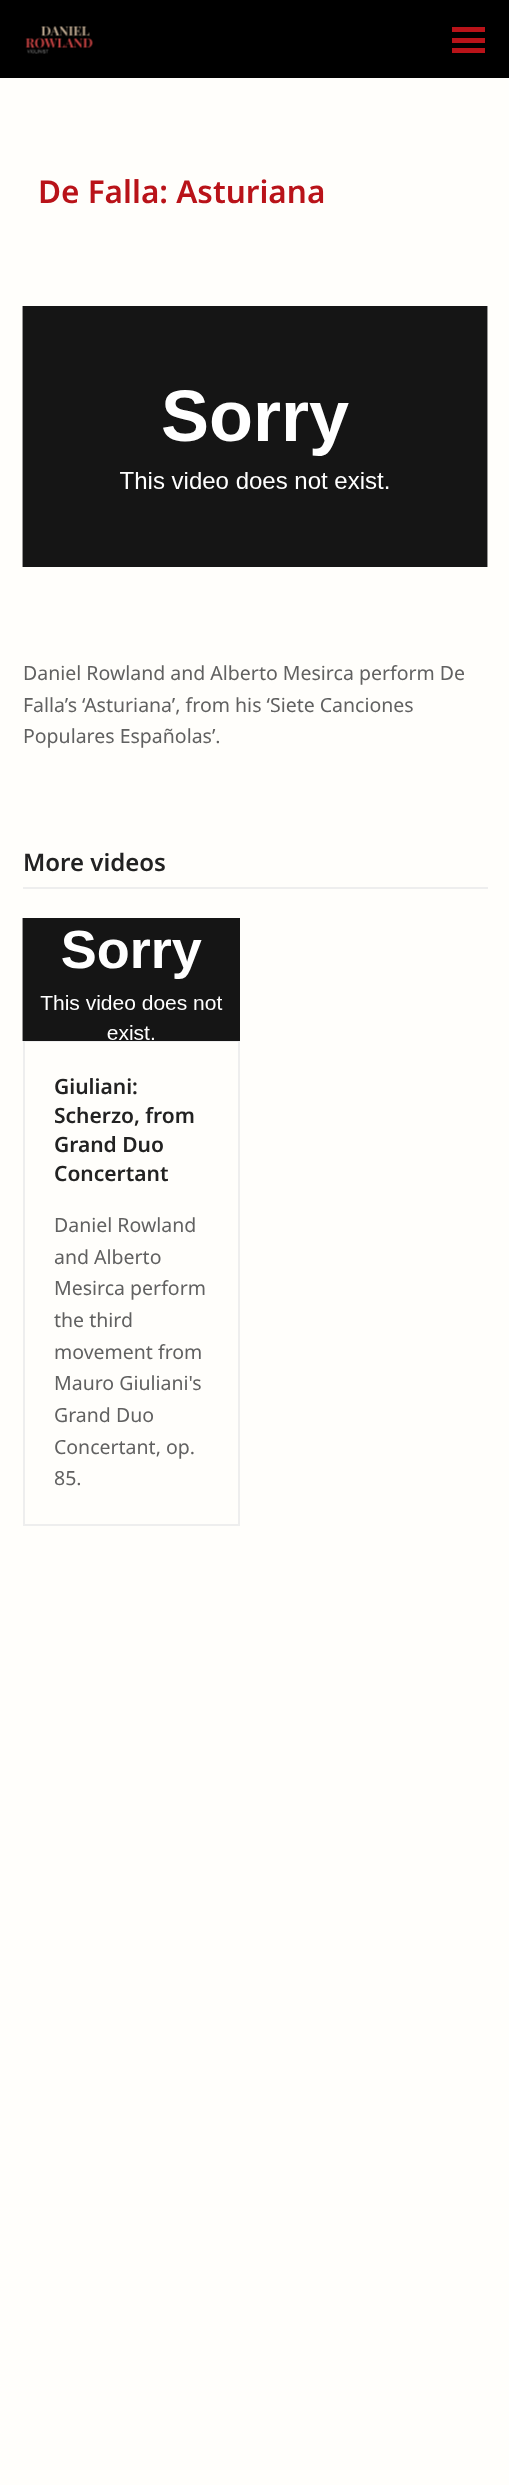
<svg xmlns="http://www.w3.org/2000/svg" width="509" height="2485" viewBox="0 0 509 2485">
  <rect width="100%" height="100%" fill="rgb(255,254,251)"/>
  <rect x="0" y="0" width="509" height="78" fill="rgb(0,0,0)"/>
  <image x="25" y="26" width="68" height="28" href="pic1.png"/>
  <rect x="452" y="38" width="33" height="5" fill="rgb(185,19,25)"/>
  <rect x="452" y="27" width="33" height="5" fill="rgb(185,19,25)"/>
  <rect x="452" y="48" width="33" height="5" fill="rgb(185,19,25)"/>
  <text x="38" y="203" font-family="Noto Sans" font-size="31.5" font-weight="600" fill="rgb(185,19,25)">De Falla: Asturiana</text>
  <image x="22" y="306" width="466" height="261" href="pic2.png"/>
  <g font-family="Noto Sans" font-size="19.5" fill="rgb(97,97,97)">
    <text>
      <tspan x="23" y="680">Daniel Rowland and Alberto Mesirca perform De</tspan>
      <tspan x="23" y="712">Falla’s ‘Asturiana’, from his ‘Siete Canciones</tspan>
      <tspan x="23" y="743">Populares Españolas’.</tspan>
    </text>
  </g>
  <rect x="23" y="887" width="465" height="2" fill="rgb(238,238,238)"/>
  <text x="23" y="871" font-family="Noto Sans" font-size="24" font-weight="600" fill="rgb(34,34,34)">More videos</text>
  <rect x="24" y="1041" width="215" height="484" fill="none" stroke="rgb(238,238,238)" stroke-width="2"/>
  <image x="22" y="918" width="218" height="123" href="pic3.png"/>
  <g font-family="Noto Sans" font-size="21" font-weight="600" fill="rgb(34,34,34)">
    <text>
      <tspan x="54" y="1094">Giuliani:</tspan>
      <tspan x="54" y="1123">Scherzo, from</tspan>
      <tspan x="54" y="1152">Grand Duo</tspan>
      <tspan x="54" y="1181">Concertant</tspan>
    </text>
  </g>
  <g font-family="Noto Sans" font-size="19.5" fill="rgb(97,97,97)">
    <text>
      <tspan x="54" y="1232">Daniel Rowland</tspan>
      <tspan x="54" y="1264">and Alberto</tspan>
      <tspan x="54" y="1295">Mesirca perform</tspan>
      <tspan x="54" y="1327">the third</tspan>
      <tspan x="54" y="1359">movement from</tspan>
      <tspan x="54" y="1390">Mauro Giuliani's</tspan>
      <tspan x="54" y="1422">Grand Duo</tspan>
      <tspan x="54" y="1454">Concertant, op.</tspan>
      <tspan x="54" y="1485">85.</tspan>
    </text>
  </g>
</svg>
